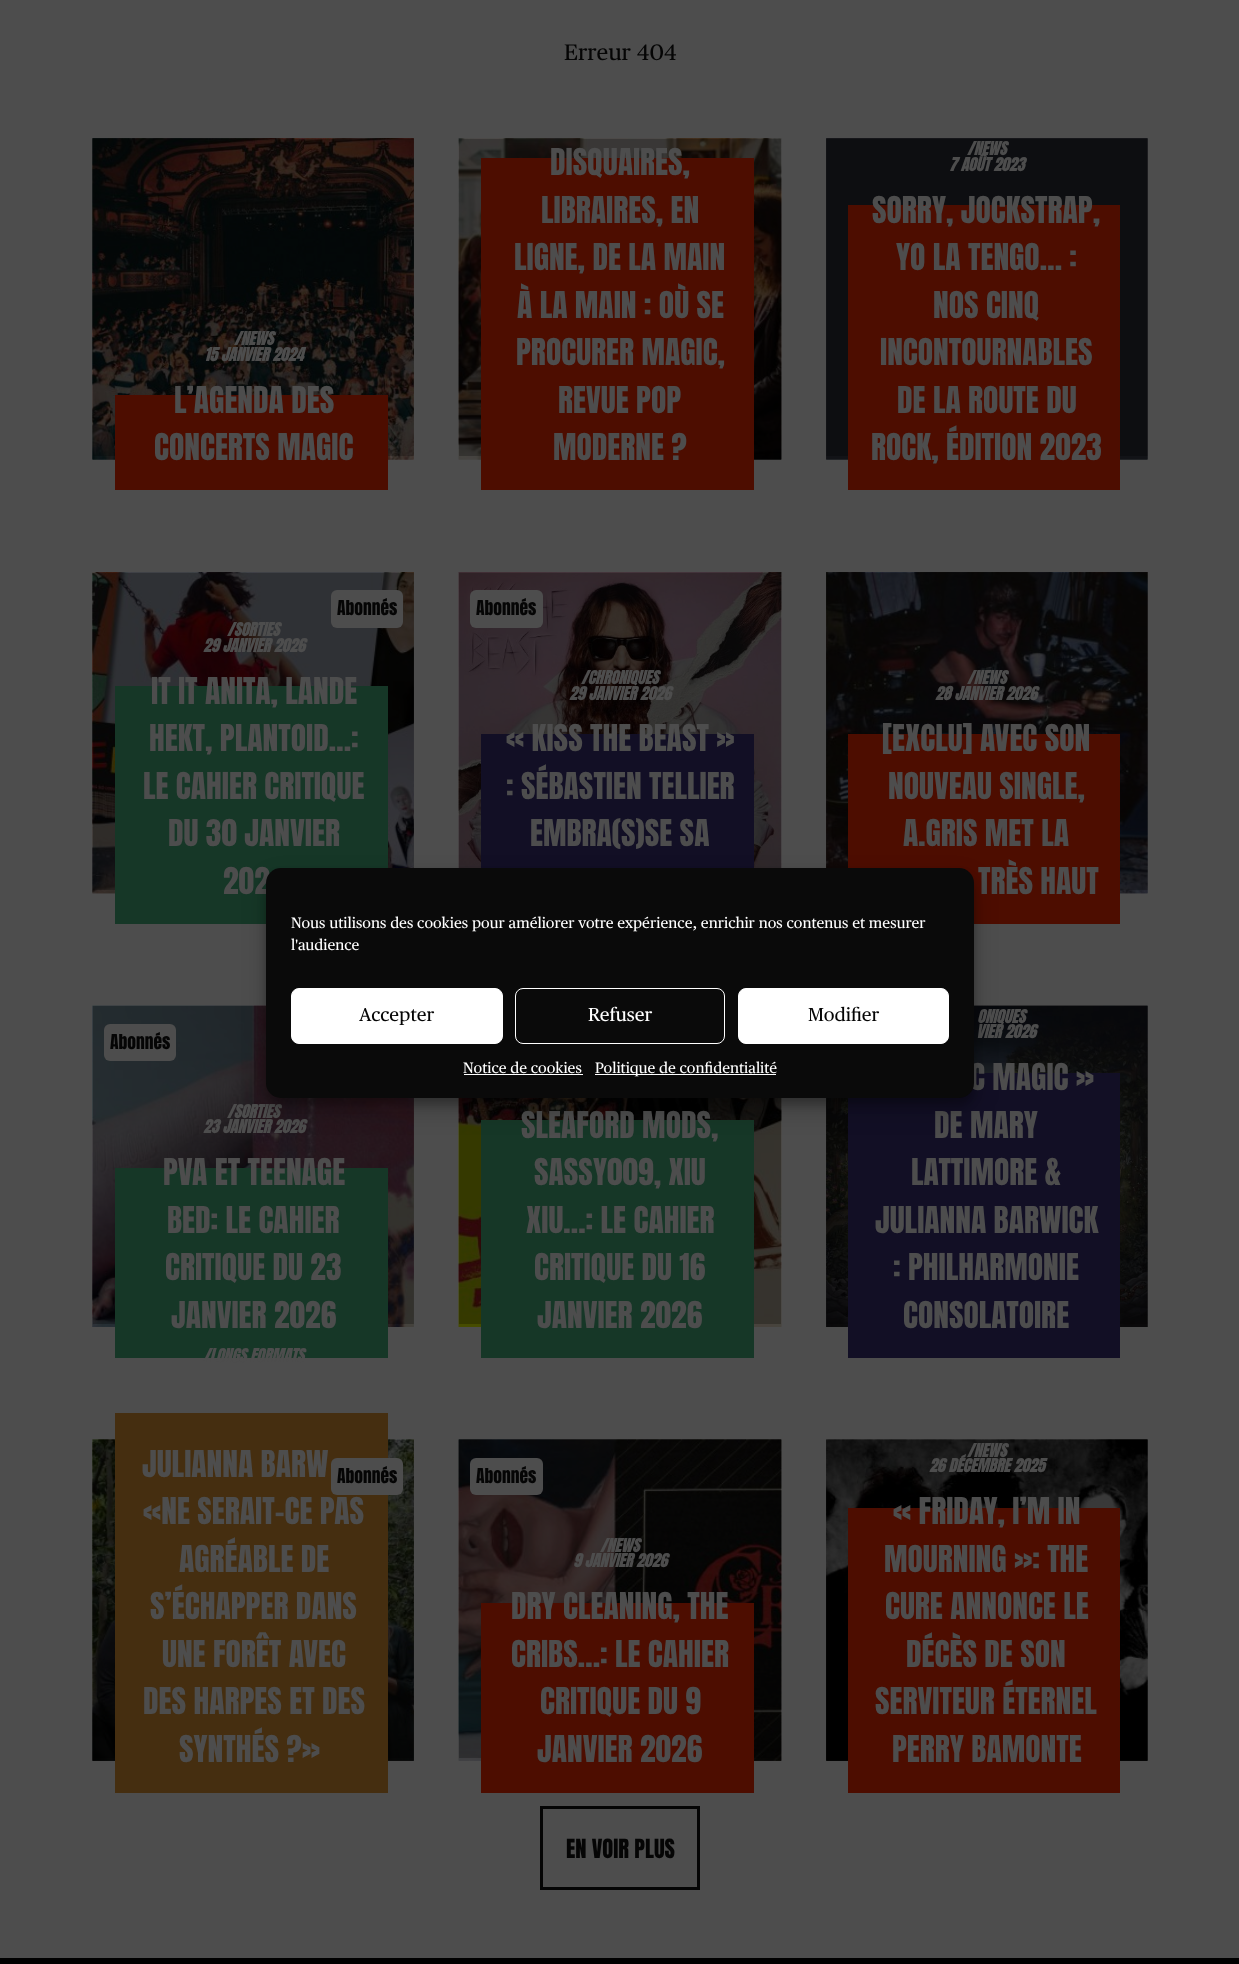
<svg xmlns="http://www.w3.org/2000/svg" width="1239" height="1964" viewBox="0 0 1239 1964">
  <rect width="100%" height="100%" fill="rgb(77,77,77)"/>
  <text x="564" y="60" font-family="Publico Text" font-size="22.5" fill="rgb(5,5,5)">Erreur 404</text>
  <image x="92" y="138" width="322" height="322" href="pic1.png"/>
  <image x="92" y="138" width="322" height="322" href="pic2.png"/>
  <g font-family="Anton" font-size="15.75" font-weight="bold" font-style="italic" fill="rgb(77,77,77)">
    <text x="234" y="345">/NEWS</text>
    <text x="204" y="361">15 JANVIER 2024</text>
  </g>
  <rect x="115" y="395" width="273" height="95" fill="rgb(77,13,0)"/>
  <g font-family="Anton" font-size="31.5" fill="rgb(77,77,77)">
    <text x="174" y="413">L’AGENDA DES</text>
    <text x="154" y="460">CONCERTS MAGIC</text>
  </g>
  <image x="458" y="138" width="324" height="322" href="pic3.png"/>
  <image x="458" y="138" width="324" height="322" href="pic4.png"/>
  <rect x="481" y="158" width="273" height="332" fill="rgb(77,13,0)"/>
  <g font-family="Anton" font-size="31.5" fill="rgb(77,77,77)">
    <text x="550" y="175">DISQUAIRES,</text>
    <text x="541" y="223">LIBRAIRES, EN</text>
    <text x="514" y="270">LIGNE, DE LA MAIN</text>
    <text x="517" y="318">À LA MAIN : OÙ SE</text>
    <text x="516" y="365">PROCURER MAGIC,</text>
    <text x="558" y="413">REVUE POP</text>
    <text x="553" y="460">MODERNE ?</text>
  </g>
  <image x="826" y="138" width="322" height="322" href="pic5.png"/>
  <image x="826" y="138" width="322" height="322" href="pic6.png"/>
  <g font-family="Anton" font-size="15.75" font-weight="bold" font-style="italic" fill="rgb(77,77,77)">
    <text x="967" y="155">/NEWS</text>
    <text x="949" y="171">7 AOÛT 2023</text>
  </g>
  <rect x="848" y="205" width="272" height="285" fill="rgb(77,13,0)"/>
  <g font-family="Anton" font-size="31.5" fill="rgb(77,77,77)">
    <text x="872" y="223">SORRY, JOCKSTRAP,</text>
    <text x="896" y="270">YO LA TENGO… :</text>
    <text x="933" y="318">NOS CINQ</text>
    <text x="880" y="365">INCONTOURNABLES</text>
    <text x="897" y="413">DE LA ROUTE DU</text>
    <text x="871" y="460">ROCK, ÉDITION 2023</text>
  </g>
  <image x="92" y="572" width="322" height="322" href="pic7.png"/>
  <image x="92" y="572" width="322" height="322" href="pic8.png"/>
  <rect x="331" y="590" width="72" height="38" rx="6" fill="rgb(77,77,77)"/>
  <text x="337" y="615" font-family="Anton" font-size="17.5" fill="rgb(5,5,5)">Abonnés</text>
  <g font-family="Anton" font-size="15.75" font-weight="bold" font-style="italic" fill="rgb(77,77,77)">
    <text x="227" y="636">/SORTIES</text>
    <text x="203" y="652">29 JANVIER 2026</text>
  </g>
  <rect x="115" y="686" width="273" height="238" fill="rgb(22,55,39)"/>
  <g font-family="Anton" font-size="31.5" fill="rgb(77,77,77)">
    <text x="151" y="704">IT IT ANITA, LANDE</text>
    <text x="149" y="751">HEKT, PLANTOID…:</text>
    <text x="143" y="799">LE CAHIER CRITIQUE</text>
    <text x="168" y="846">DU 30 JANVIER</text>
    <text x="223" y="894">202</text>
  </g>
  <image x="458" y="572" width="324" height="296" href="pic9.png"/>
  <image x="458" y="572" width="324" height="296" href="pic10.png"/>
  <rect x="470" y="590" width="73" height="38" rx="6" fill="rgb(77,77,77)"/>
  <text x="476" y="615" font-family="Anton" font-size="17.5" fill="rgb(5,5,5)">Abonnés</text>
  <g font-family="Anton" font-size="15.75" font-weight="bold" font-style="italic" fill="rgb(77,77,77)">
    <text x="581" y="684">/CHRONIQUES</text>
    <text x="569" y="700">29 JANVIER 2026</text>
  </g>
  <rect x="481" y="734" width="273" height="134" fill="rgb(18,15,37)"/>
  <g font-family="Anton" font-size="31.5" fill="rgb(77,77,77)">
    <text>
      <tspan x="506" y="751">« KISS THE BEAST »</tspan>
      <tspan x="506" y="799">: SÉBASTIEN TELLIER</tspan>
    </text>
    <text x="530" y="846">EMBRA(S)SE SA</text>
  </g>
  <image x="826" y="572" width="322" height="322" href="pic11.png"/>
  <image x="826" y="572" width="322" height="322" href="pic12.png"/>
  <g font-family="Anton" font-size="15.75" font-weight="bold" font-style="italic" fill="rgb(77,77,77)">
    <text x="967" y="684">/NEWS</text>
    <text x="935" y="700">28 JANVIER 2026</text>
  </g>
  <rect x="848" y="734" width="272" height="190" fill="rgb(77,13,0)"/>
  <g font-family="Anton" font-size="31.5" fill="rgb(77,77,77)">
    <text x="882" y="751">[EXCLU] AVEC SON</text>
    <text x="888" y="799">NOUVEAU SINGLE,</text>
    <text x="903" y="846">A.GRIS MET LA</text>
    <text x="978" y="894">TRÈS HAUT</text>
  </g>
  <image x="92" y="1005" width="322" height="322" href="pic13.png"/>
  <image x="92" y="1005" width="322" height="322" href="pic14.png"/>
  <rect x="104" y="1024" width="72" height="37" rx="6" fill="rgb(77,77,77)"/>
  <text x="110" y="1049" font-family="Anton" font-size="17.5" fill="rgb(5,5,5)">Abonnés</text>
  <g font-family="Anton" font-size="15.75" font-weight="bold" font-style="italic" fill="rgb(77,77,77)">
    <text x="227" y="1118">/SORTIES</text>
    <text x="203" y="1133">23 JANVIER 2026</text>
  </g>
  <rect x="115" y="1168" width="273" height="190" fill="rgb(22,55,39)"/>
  <g font-family="Anton" font-size="31.5" fill="rgb(77,77,77)">
    <text x="163" y="1185">PVA ET TEENAGE</text>
    <text x="167" y="1233">BED: LE CAHIER</text>
    <text x="165" y="1280">CRITIQUE DU 23</text>
    <text x="171" y="1328">JANVIER 2026</text>
  </g>
  <image x="458" y="1098" width="324" height="229" href="pic15.png"/>
  <image x="458" y="1098" width="324" height="229" href="pic16.png"/>
  <rect x="481" y="1120" width="273" height="238" fill="rgb(22,55,39)"/>
  <g font-family="Anton" font-size="31.5" fill="rgb(77,77,77)">
    <text x="521" y="1138">SLEAFORD MODS,</text>
    <text x="534" y="1185">SASSY009, XIU</text>
    <text x="526" y="1233">XIU…: LE CAHIER</text>
    <text x="534" y="1280">CRITIQUE DU 16</text>
    <text x="537" y="1328">JANVIER 2026</text>
  </g>
  <image x="826" y="1005" width="322" height="322" href="pic17.png"/>
  <image x="826" y="1005" width="322" height="322" href="pic18.png"/>
  <g font-family="Anton" font-size="15.75" font-weight="bold" font-style="italic" fill="rgb(77,77,77)">
    <text x="977" y="1023">ONIQUES</text>
    <text x="976" y="1038">VIER 2026</text>
  </g>
  <rect x="848" y="1073" width="272" height="285" fill="rgb(18,15,37)"/>
  <g font-family="Anton" font-size="31.5" fill="rgb(77,77,77)">
    <text x="970" y="1090">C MAGIC »</text>
    <text x="934" y="1138">DE MARY</text>
    <text x="911" y="1185">LATTIMORE &amp;</text>
    <text x="875" y="1233">JULIANNA BARWICK</text>
    <text x="893" y="1280">: PHILHARMONIE</text>
    <text x="903" y="1328">CONSOLATOIRE</text>
  </g>
  <text x="203" y="1362" font-family="Anton" font-size="15.75" font-weight="bold" font-style="italic" fill="rgb(77,77,77)">/LONGS FORMATS</text>
  <image x="92" y="1439" width="322" height="322" href="pic19.png"/>
  <image x="92" y="1439" width="322" height="322" href="pic20.png"/>
  <rect x="115" y="1413" width="273" height="380" fill="rgb(69,46,16)"/>
  <g font-family="Anton" font-size="31.5" fill="rgb(77,77,77)">
    <text x="142" y="1477">JULIANNA BARW</text>
    <text x="143" y="1524">«NE SERAIT-CE PAS</text>
    <text x="179" y="1572">AGRÉABLE DE</text>
    <text x="150" y="1619">S’ÉCHAPPER DANS</text>
    <text x="162" y="1667">UNE FORÊT AVEC</text>
    <text x="143" y="1714">DES HARPES ET DES</text>
    <text x="179" y="1762">SYNTHÉS ?»</text>
  </g>
  <rect x="331" y="1458" width="72" height="37" rx="6" fill="rgb(77,77,77)"/>
  <text x="337" y="1483" font-family="Anton" font-size="17.5" fill="rgb(5,5,5)">Abonnés</text>
  <image x="458" y="1439" width="324" height="322" href="pic21.png"/>
  <image x="458" y="1439" width="324" height="322" href="pic22.png"/>
  <rect x="470" y="1458" width="73" height="37" rx="6" fill="rgb(77,77,77)"/>
  <text x="476" y="1483" font-family="Anton" font-size="17.5" fill="rgb(5,5,5)">Abonnés</text>
  <g font-family="Anton" font-size="15.75" font-weight="bold" font-style="italic" fill="rgb(77,77,77)">
    <text x="600" y="1552">/NEWS</text>
    <text x="573" y="1567">9 JANVIER 2026</text>
  </g>
  <rect x="481" y="1603" width="273" height="190" fill="rgb(77,13,0)"/>
  <g font-family="Anton" font-size="31.5" fill="rgb(77,77,77)">
    <text>
      <tspan x="511" y="1619">DRY CLEANING, THE</tspan>
      <tspan x="511" y="1667">CRIBS…: LE CAHIER</tspan>
    </text>
    <text x="540" y="1714">CRITIQUE DU 9</text>
    <text x="537" y="1762">JANVIER 2026</text>
  </g>
  <image x="826" y="1439" width="322" height="322" href="pic23.png"/>
  <image x="826" y="1439" width="322" height="322" href="pic24.png"/>
  <g font-family="Anton" font-size="15.75" font-weight="bold" font-style="italic" fill="rgb(77,77,77)">
    <text x="967" y="1457">/NEWS</text>
    <text x="929" y="1472">26 DÉCEMBRE 2025</text>
  </g>
  <rect x="848" y="1508" width="272" height="285" fill="rgb(77,13,0)"/>
  <g font-family="Anton" font-size="31.5" fill="rgb(77,77,77)">
    <text x="893" y="1524">« FRIDAY, I’M IN</text>
    <text x="884" y="1572">MOURNING »: THE</text>
    <text x="885" y="1619">CURE ANNONCE LE</text>
    <text x="906" y="1667">DÉCÈS DE SON</text>
    <text x="875" y="1714">SERVITEUR ÉTERNEL</text>
    <text x="892" y="1762">PERRY BAMONTE</text>
  </g>
  <rect x="541.5" y="1807.5" width="157" height="81" fill="none" stroke="rgb(5,5,5)" stroke-width="3"/>
  <text x="566" y="1858" font-family="Anton" font-size="22.5" fill="rgb(5,5,5)">EN VOIR PLUS</text>
  <rect x="266" y="875" width="708" height="230" rx="15" fill="rgba(0,0,0,0.23)" filter="blur(4px)"/>
  <rect x="266" y="880" width="708" height="230" rx="15" fill="rgba(0,0,0,0.19)" filter="blur(12.5px)"/>
  <rect x="266" y="868" width="708" height="230" rx="15" fill="rgb(10,10,10)"/>
  <g font-family="Publico Text" font-size="15" fill="rgb(255,255,255)">
    <text>
      <tspan x="291" y="928">Nous utilisons des cookies pour améliorer votre expérience, enrichir nos contenus et mesurer</tspan>
      <tspan x="291" y="950">l'audience</tspan>
    </text>
  </g>
  <rect x="291.5" y="988.5" width="211" height="55" rx="7.5" fill="rgb(255,255,255)" stroke="rgb(255,255,255)"/>
  <text x="359" y="1021" font-family="Publico Text" font-size="18.75" fill="rgb(5,5,5)">Accepter</text>
  <rect x="515.5" y="988.5" width="209" height="55" rx="7.5" fill="none" stroke="rgb(255,255,255)"/>
  <text x="588" y="1021" font-family="Publico Text" font-size="18.75" fill="rgb(255,255,255)">Refuser</text>
  <rect x="738.5" y="988.5" width="210" height="55" rx="7.5" fill="rgb(255,255,255)" stroke="rgb(255,255,255)"/>
  <text x="808" y="1021" font-family="Publico Text" font-size="18.75" fill="rgb(5,5,5)">Modifier</text>
  <text x="463" y="1073" font-family="Publico Text" font-size="15" fill="rgb(255,255,255)">Notice de cookies</text>
  <rect x="464" y="1074" width="119" height="1" fill="rgb(255,255,255)"/>
  <rect x="595" y="1074" width="181" height="1" fill="rgb(255,255,255)"/>
  <text x="595" y="1073" font-family="Publico Text" font-size="15" fill="rgb(255,255,255)">Politique de confidentialité</text>
  <rect x="0" y="1958" width="1239" height="6" fill="rgb(0,0,0)"/>
</svg>
